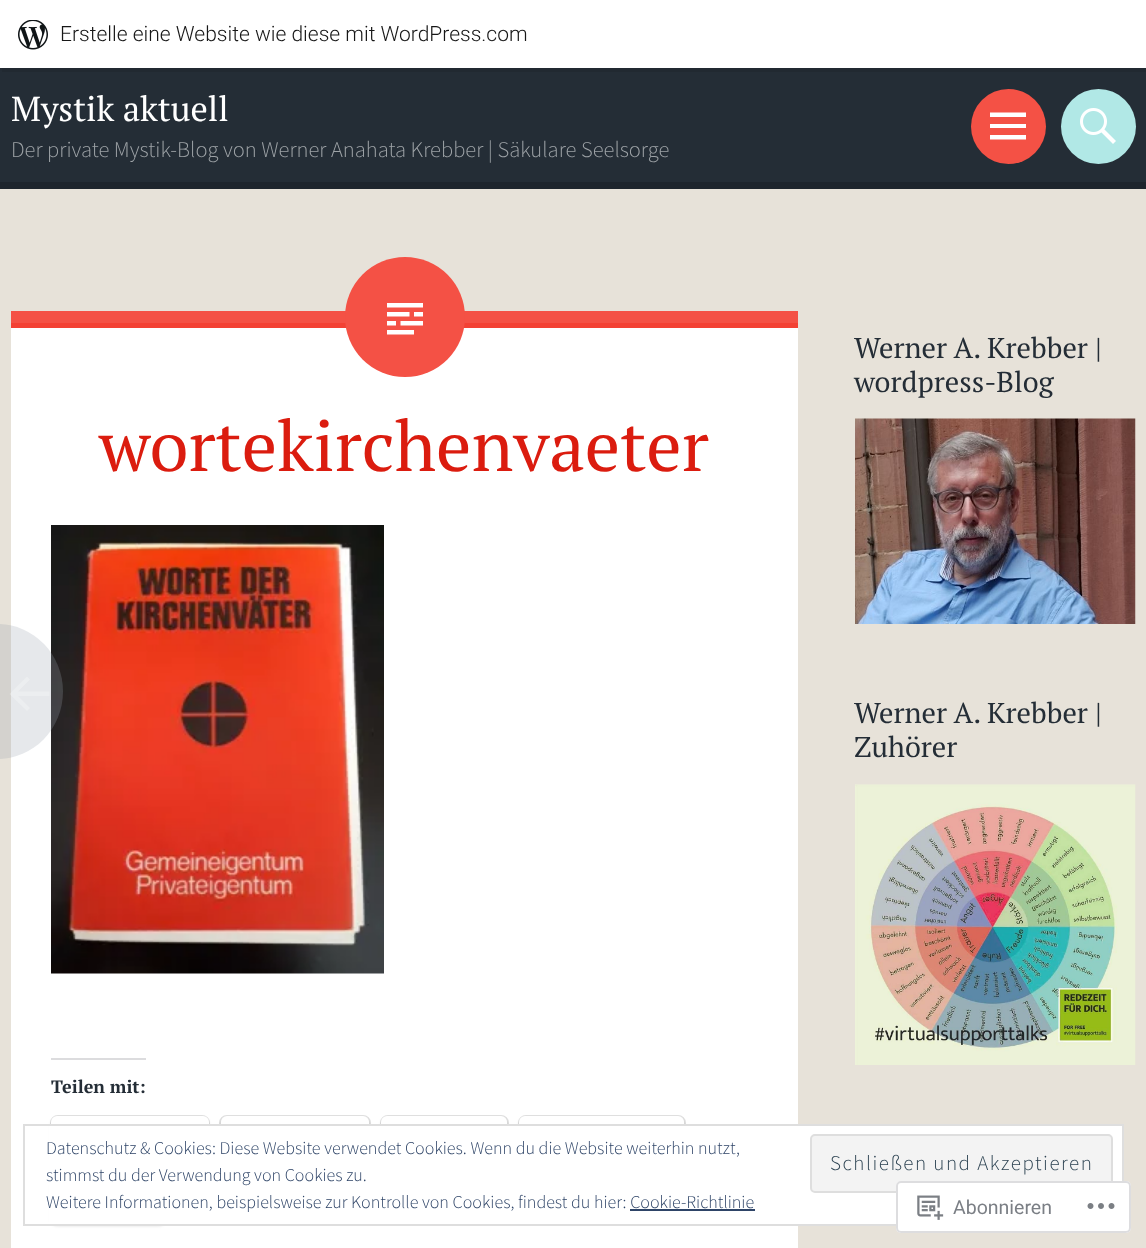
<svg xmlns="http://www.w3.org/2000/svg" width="1146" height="1248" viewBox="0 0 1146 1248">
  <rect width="100%" height="100%" fill="rgb(231,226,217)"/>
  <rect x="0" y="68" width="1146" height="114" fill="rgb(36,45,54)"/>
  <rect x="0" y="2" width="1146" height="67" fill="rgba(0,0,0,0.05)" filter="blur(1.5px)"/>
  <path d="M2 68V72H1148V5H1146V68Z" fill="rgb(33,41,49)"/>
  <rect x="0" y="0" width="1146" height="68" fill="rgb(255,255,255)"/>
  <image x="18" y="20" width="30" height="30" href="pic1.png"/>
  <text x="60" y="41" font-family="Roboto" font-size="21" font-weight="300" fill="rgb(23,23,23)">Erstelle eine Website wie diese mit WordPress.com</text>
  <rect x="0" y="182" width="1146" height="7" fill="rgb(30,37,45)"/>
  <text x="11" y="121" font-family="PT Serif" font-size="34.5" fill="rgb(255,255,255)">Mystik aktuell</text>
  <text x="11" y="157" font-family="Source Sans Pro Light" font-size="22.5" font-weight="300" fill="rgb(158,163,167)">Der private Mystik-Blog von Werner Anahata Krebber | Säkulare Seelsorge</text>
  <circle cx="1008.5" cy="126.5" r="37.5" fill="rgb(244,81,69)"/>
  <path d="M990 139.5V135H1026V139.5ZM990 112.5H1026V117H990ZM990 128V124H1026V128Z" fill="rgb(255,255,255)"/>
  <circle cx="1098.5" cy="126.5" r="37.5" fill="rgb(177,232,230)"/>
  <image x="1080" y="108" width="36" height="36" href="pic2.png"/>
  <rect x="11" y="328" width="787" height="920" fill="rgb(255,255,255)"/>
  <image x="51" y="525" width="333" height="449" href="pic4.png"/>
  <rect x="-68" y="624" width="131" height="135" rx="67.5" fill="rgba(155,162,175,0.25)"/>
  <path d="M27 676.5L30 679.5L18 691.5H49.5V696H18L30 708L27 711L9.5 694Z" fill="rgba(255,255,255,0.25)"/>
  <rect x="11" y="311" width="787" height="12" fill="rgb(244,81,69)"/>
  <rect x="11" y="323" width="787" height="5" fill="rgb(243,65,52)"/>
  <circle cx="405" cy="317" r="60" fill="rgb(244,81,69)"/>
  <image x="387" y="303" width="36" height="32" href="pic3.png"/>
  <text x="99" y="471" font-family="PT Serif" font-size="70.5" fill="rgb(219,28,15)">wortekirchenvaeter</text>
  <rect x="51" y="1058" width="95" height="2" fill="rgb(220,220,222)"/>
  <text x="51" y="1093" font-family="PT Serif" font-size="18" font-weight="bold" fill="rgb(36,45,54)">Teilen mit:</text>
  <rect x="51" y="1116" width="158" height="46" rx="7" fill="none" stroke="rgb(224,224,224)" stroke-width="2"/>
  <rect x="51" y="1118" width="158" height="45" rx="6" fill="rgba(0,0,0,0.12)" filter="blur(1.5px)"/>
  <rect x="51" y="1116" width="158" height="45" rx="6" fill="rgb(255,255,255)"/>
  <rect x="220" y="1116" width="150" height="46" rx="7" fill="none" stroke="rgb(224,224,224)" stroke-width="2"/>
  <rect x="221" y="1118" width="148" height="45" rx="6" fill="rgba(0,0,0,0.12)" filter="blur(1.5px)"/>
  <rect x="221" y="1116" width="148" height="45" rx="6" fill="rgb(255,255,255)"/>
  <rect x="381" y="1116" width="127" height="46" rx="7" fill="none" stroke="rgb(224,224,224)" stroke-width="2"/>
  <rect x="381" y="1118" width="126" height="45" rx="6" fill="rgba(0,0,0,0.12)" filter="blur(1.5px)"/>
  <rect x="381" y="1116" width="126" height="45" rx="6" fill="rgb(255,255,255)"/>
  <rect x="519" y="1116" width="166" height="46" rx="7" fill="none" stroke="rgb(224,224,224)" stroke-width="2"/>
  <rect x="519" y="1118" width="165" height="45" rx="6" fill="rgba(0,0,0,0.12)" filter="blur(1.5px)"/>
  <rect x="519" y="1116" width="165" height="45" rx="6" fill="rgb(255,255,255)"/>
  <rect x="51" y="1181" width="114" height="45" rx="6" fill="rgba(0,0,0,0.12)" filter="blur(1.5px)"/>
  <g font-family="PT Serif" font-size="28.75" fill="rgb(36,45,54)">
    <text>
      <tspan x="854" y="358">Werner A. Krebber |</tspan>
      <tspan x="854" y="392">wordpress-Blog</tspan>
    </text>
  </g>
  <image x="855" y="418" width="281" height="206" href="pic5.png"/>
  <g font-family="PT Serif" font-size="28.75" fill="rgb(36,45,54)">
    <text>
      <tspan x="854" y="723">Werner A. Krebber |</tspan>
      <tspan x="854" y="757">Zuhörer</tspan>
    </text>
  </g>
  <image x="855" y="784" width="281" height="281" href="pic6.png"/>
  <rect x="49" y="1126" width="1073" height="98" fill="rgb(255,255,255)"/>
  <rect x="24" y="1125" width="1099" height="100" fill="none" stroke="rgb(222,222,222)" stroke-width="2"/>
  <text x="46" y="1154" font-family="Source Sans Pro Light" font-size="18" font-weight="300" fill="rgb(46,68,103)">Datenschutz &amp; Cookies: Diese Website verwendet Cookies. Wenn du die Website weiterhin nutzt,</text>
  <rect x="811" y="1135" width="301" height="57" rx="4" fill="rgb(243,243,243)" stroke="rgb(222,222,222)" stroke-width="2"/>
  <text x="830" y="1170" font-family="Source Sans Pro Light" font-size="21" font-weight="300" letter-spacing="1.5" fill="rgb(46,68,83)">Schließen und Akzeptieren</text>
  <g font-family="Source Sans Pro Light" font-size="18" font-weight="300" fill="rgb(46,68,103)">
    <text>
      <tspan x="46" y="1181">stimmst du der Verwendung von Cookies zu.</tspan>
      <tspan x="46" y="1208">Weitere Informationen, beispielsweise zur Kontrolle von Cookies, findest du hier: Cookie-Richtlinie</tspan>
    </text>
  </g>
  <rect x="630" y="1209" width="125" height="2" fill="rgb(46,68,103)"/>
  <rect x="896" y="1181" width="235" height="52" rx="5" fill="rgba(255,255,255,0.98)"/>
  <rect x="897" y="1182" width="233" height="50" rx="4" fill="none" stroke="rgba(220,220,222,0.98)" stroke-width="2"/>
  <image x="917" y="1195" width="27" height="25" href="pic7.png"/>
  <text x="953" y="1214" font-family="Roboto" font-size="19.5" fill="rgb(123,127,133)">Abonnieren</text>
  <image x="1087" y="1203" width="28" height="6" href="pic8.png"/>
</svg>
